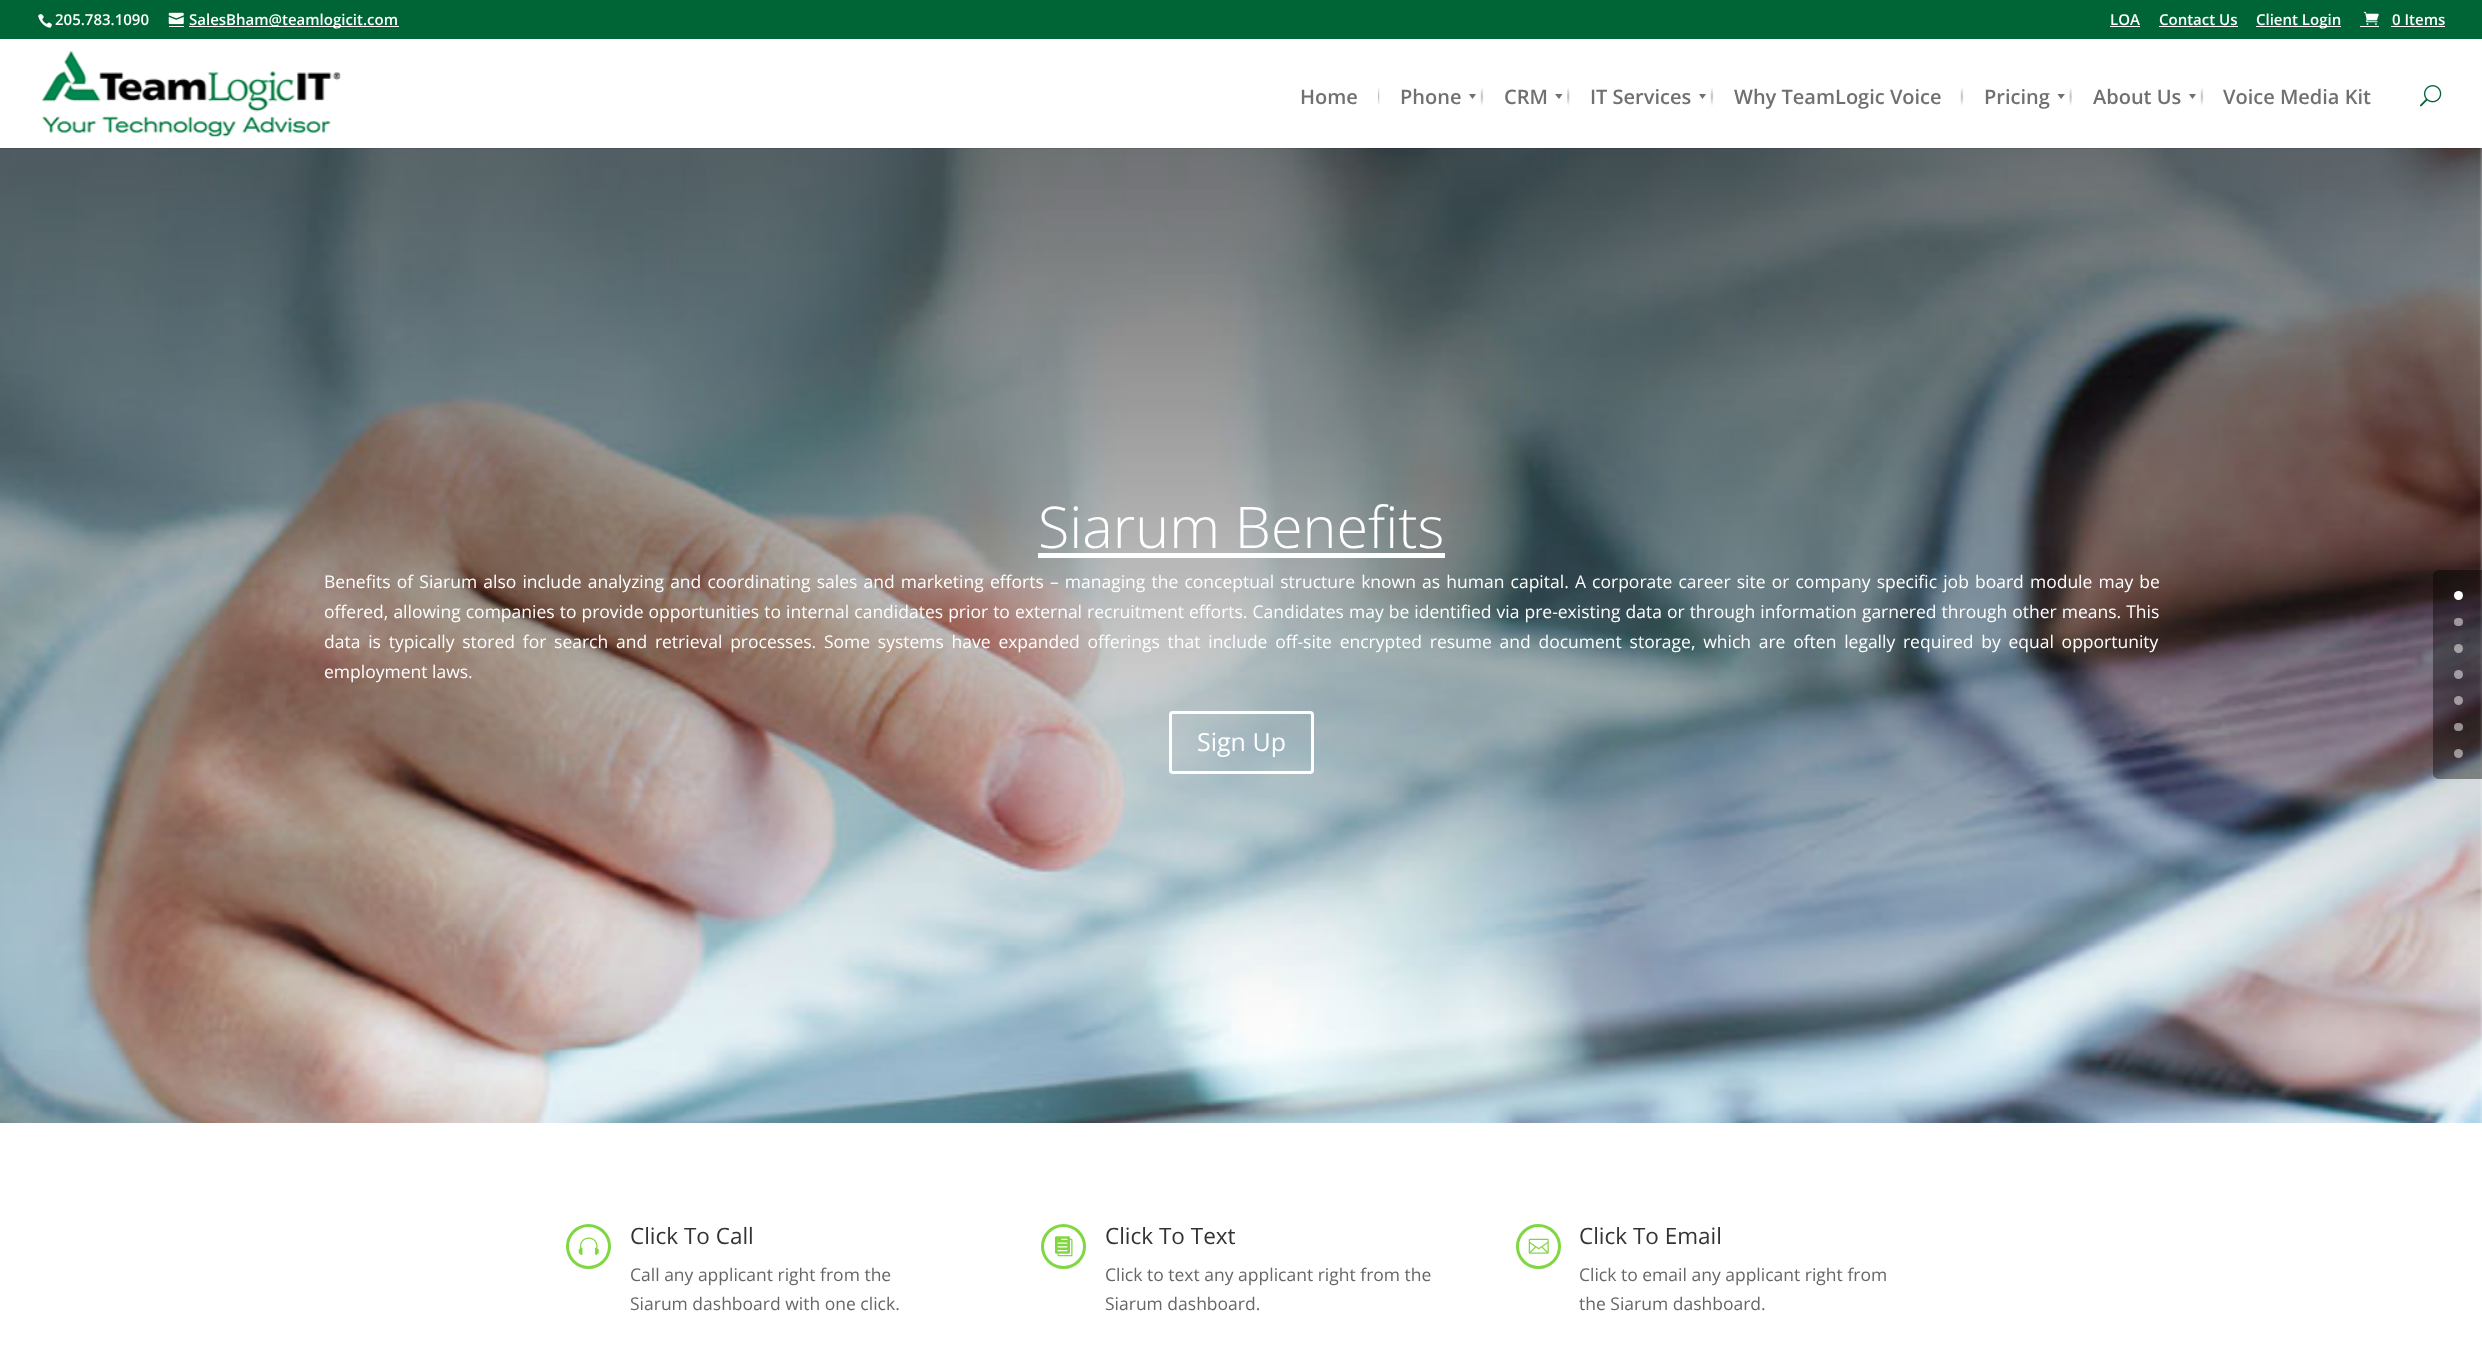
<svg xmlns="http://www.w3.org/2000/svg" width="2482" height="1365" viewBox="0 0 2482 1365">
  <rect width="100%" height="100%" fill="rgb(255,255,255)"/>
  <rect x="0" y="0" width="2482" height="39" fill="rgb(0,101,54)"/>
  <image x="38" y="14" width="14" height="14" href="pic1.png"/>
  <text x="55" y="25" font-family="Open Sans" font-size="15" font-weight="600" fill="rgb(255,255,255)">205.783.1090</text>
  <image x="168" y="12" width="16" height="13" href="pic2.png"/>
  <rect x="189" y="26" width="210" height="1" fill="rgb(255,255,255)"/>
  <text x="189" y="25" font-family="Open Sans" font-size="15" font-weight="600" fill="rgb(255,255,255)">SalesBham@teamlogicit.com</text>
  <rect x="169" y="26" width="15" height="1" fill="rgb(255,255,255)"/>
  <text x="2110" y="25" font-family="Open Sans" font-size="15" font-weight="600" fill="rgb(255,255,255)">LOA</text>
  <rect x="2110" y="26" width="30" height="1" fill="rgb(255,255,255)"/>
  <text x="2159" y="25" font-family="Open Sans" font-size="15" font-weight="600" fill="rgb(255,255,255)">Contact Us</text>
  <rect x="2159" y="26" width="79" height="1" fill="rgb(255,255,255)"/>
  <rect x="2256" y="26" width="85" height="1" fill="rgb(255,255,255)"/>
  <text x="2256" y="25" font-family="Open Sans" font-size="15" font-weight="600" fill="rgb(255,255,255)">Client Login</text>
  <image x="2363" y="11" width="16" height="14" href="pic3.png"/>
  <text x="2392" y="25" font-family="Open Sans" font-size="15" font-weight="600" fill="rgb(255,255,255)">0 Items</text>
  <rect x="2360" y="26" width="19" height="1" fill="rgb(255,255,255)"/>
  <rect x="2391" y="26" width="54" height="1" fill="rgb(255,255,255)"/>
  <image x="0" y="148" width="2482" height="975" href="pic10.png"/>
  <path d="M0 148V149H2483V40H2482V148Z" fill="rgba(0,0,0,0.1)"/>
  <image x="42" y="51" width="299" height="86" href="pic4.png"/>
  <text x="1300" y="104" font-family="Open Sans" font-size="20" font-weight="600" fill="rgb(112,112,112)">Home</text>
  <image x="1378" y="87" width="2" height="19" href="pic5.png"/>
  <text x="1400" y="104" font-family="Open Sans" font-size="20" font-weight="600" fill="rgb(112,112,112)">Phone</text>
  <path d="M1469 94H1476L1472.5 99Z" fill="rgb(112,112,112)"/>
  <image x="1480" y="87" width="4" height="19" href="pic6.png"/>
  <text x="1504" y="104" font-family="Open Sans" font-size="20" font-weight="600" fill="rgb(112,112,112)">CRM</text>
  <path d="M1555 94H1562.5L1559 99Z" fill="rgb(112,112,112)"/>
  <image x="1567" y="87" width="3" height="19" href="pic7.png"/>
  <text x="1590" y="104" font-family="Open Sans" font-size="20" font-weight="600" fill="rgb(112,112,112)">IT Services</text>
  <path d="M1699 94H1706L1702.5 99Z" fill="rgb(112,112,112)"/>
  <image x="1710" y="87" width="4" height="19" href="pic6.png"/>
  <text x="1734" y="104" font-family="Open Sans" font-size="20" font-weight="600" fill="rgb(112,112,112)">Why TeamLogic Voice</text>
  <image x="1960" y="87" width="4" height="19" href="pic6.png"/>
  <text x="1984" y="104" font-family="Open Sans" font-size="20" font-weight="600" fill="rgb(112,112,112)">Pricing</text>
  <path d="M2057.5 94H2065L2061 99Z" fill="rgb(112,112,112)"/>
  <image x="2069" y="88" width="3" height="17" href="pic8.png"/>
  <text x="2093" y="104" font-family="Open Sans" font-size="20" font-weight="600" fill="rgb(112,112,112)">About Us</text>
  <path d="M2189 94H2196L2192.5 99Z" fill="rgb(112,112,112)"/>
  <image x="2200" y="87" width="4" height="19" href="pic6.png"/>
  <text x="2223" y="104" font-family="Open Sans" font-size="20" font-weight="600" fill="rgb(112,112,112)">Voice Media Kit</text>
  <image x="2420" y="85" width="22" height="22" href="pic9.png"/>
  <text x="1038" y="548" font-family="Open Sans" font-size="57.5" font-weight="300" fill="rgb(255,255,255)">Siarum Benefits</text>
  <rect x="1038" y="553" width="407" height="5" fill="rgb(255,255,255)"/>
  <g font-family="Open Sans" font-size="17.5" fill="rgb(255,255,255)">
    <text>
      <tspan x="324" y="588" word-spacing="1.6">Benefits of Siarum also include analyzing and coordinating sales and marketing efforts – managing the conceptual structure known as human capital. A corporate career site or company specific job board module may be</tspan>
      <tspan x="324" y="618" word-spacing="0.5">offered, allowing companies to provide opportunities to internal candidates prior to external recruitment efforts. Candidates may be identified via pre-existing data or through information garnered through other means. This</tspan>
      <tspan x="324" y="648" word-spacing="3.2">data is typically stored for search and retrieval processes. Some systems have expanded offerings that include off-site encrypted resume and document storage, which are often legally required by equal opportunity</tspan>
      <tspan x="324" y="678">employment laws.</tspan>
    </text>
  </g>
  <rect x="1170.5" y="712.5" width="142" height="60" rx="2.5" fill="none" stroke="rgb(255,255,255)" stroke-width="3"/>
  <text x="1197" y="751" font-family="Open Sans" font-size="25" fill="rgb(255,255,255)">Sign Up</text>
  <circle cx="588.5" cy="1246.5" r="21" fill="none" stroke="rgb(129,215,66)" stroke-width="3"/>
  <image x="578" y="1237" width="21" height="18" href="pic11.png"/>
  <text x="630" y="1244" font-family="Open Sans" font-size="22.5" fill="rgb(51,51,51)">Click To Call</text>
  <g font-family="Open Sans" font-size="17.5" fill="rgb(102,102,102)">
    <text>
      <tspan x="630" y="1281">Call any applicant right from the</tspan>
      <tspan x="630" y="1310">Siarum dashboard with one click.</tspan>
    </text>
  </g>
  <circle cx="1063.5" cy="1246.5" r="21" fill="none" stroke="rgb(129,215,66)" stroke-width="3"/>
  <image x="1055" y="1236" width="18" height="21" href="pic12.png"/>
  <text x="1105" y="1244" font-family="Open Sans" font-size="22.5" fill="rgb(51,51,51)">Click To Text</text>
  <g font-family="Open Sans" font-size="17.5" fill="rgb(102,102,102)">
    <text>
      <tspan x="1105" y="1281">Click to text any applicant right from the</tspan>
      <tspan x="1105" y="1310">Siarum dashboard.</tspan>
    </text>
  </g>
  <circle cx="1538.5" cy="1246.5" r="21" fill="none" stroke="rgb(129,215,66)" stroke-width="3"/>
  <image x="1528" y="1238" width="21" height="16" href="pic13.png"/>
  <text x="1579" y="1244" font-family="Open Sans" font-size="22.5" fill="rgb(51,51,51)">Click To Email</text>
  <g font-family="Open Sans" font-size="17.5" fill="rgb(102,102,102)">
    <text>
      <tspan x="1579" y="1281">Click to email any applicant right from</tspan>
      <tspan x="1579" y="1310">the Siarum dashboard.</tspan>
    </text>
  </g>
  <path d="M2439 570H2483V779H2439C2435.5 779 2433 776.5 2433 773V576C2433 572.5 2435.5 570 2439 570Z" fill="rgba(0,0,0,0.4)"/>
  <circle cx="2458.5" cy="595.5" r="4.5" fill="rgb(255,255,255)"/>
  <rect x="2454" y="618" width="9" height="8" rx="4" fill="rgba(255,255,255,0.5)"/>
  <circle cx="2458.5" cy="648.5" r="4.5" fill="rgba(255,255,255,0.5)"/>
  <circle cx="2458.5" cy="674.5" r="4.5" fill="rgba(255,255,255,0.5)"/>
  <circle cx="2458.5" cy="700.5" r="4.5" fill="rgba(255,255,255,0.5)"/>
  <rect x="2454" y="723" width="9" height="8" rx="4" fill="rgba(255,255,255,0.5)"/>
  <circle cx="2458.5" cy="753.5" r="4.5" fill="rgba(255,255,255,0.5)"/>
</svg>
